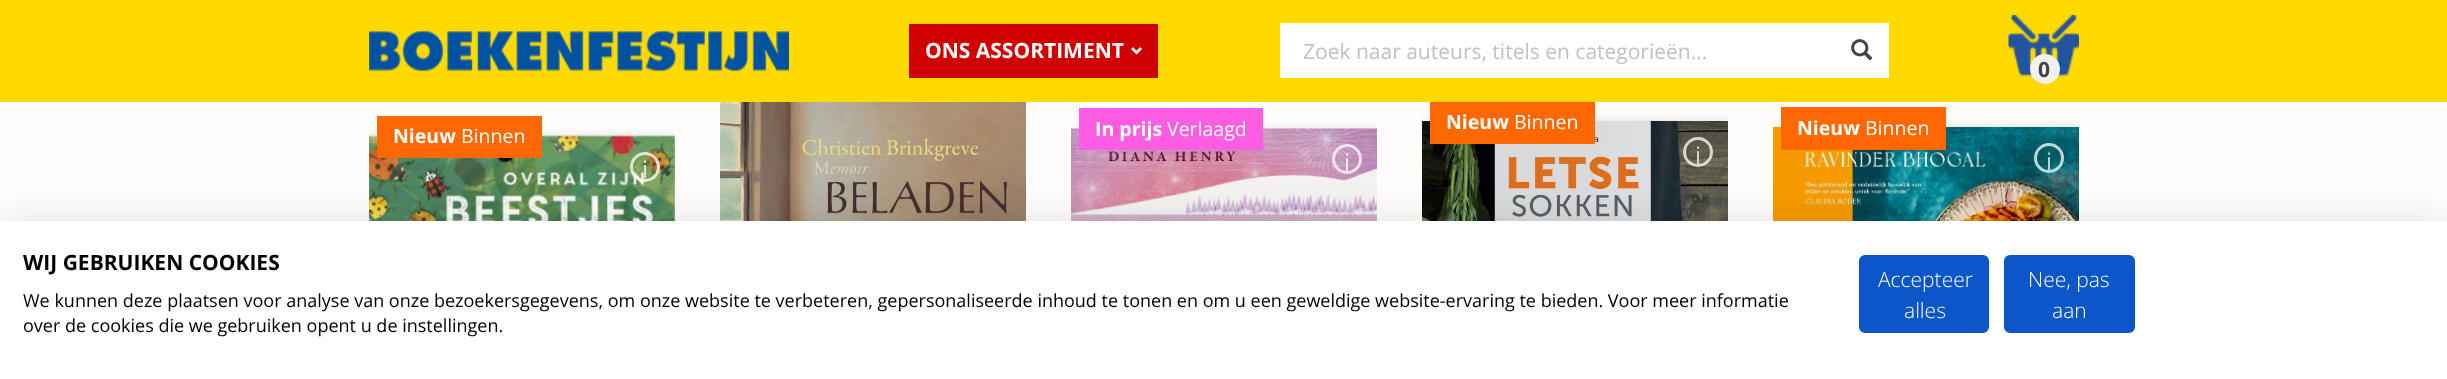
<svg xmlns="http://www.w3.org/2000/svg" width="2447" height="379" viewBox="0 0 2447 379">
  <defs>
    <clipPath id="clip1"><rect x="1304" y="36" width="507" height="29"/></clipPath>
    <clipPath id="clip2"><rect x="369" y="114" width="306" height="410"/></clipPath>
    <clipPath id="clip3"><rect x="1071" y="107" width="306" height="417"/></clipPath>
    <clipPath id="clip4"><rect x="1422" y="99" width="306" height="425"/></clipPath>
    <clipPath id="clip5"><rect x="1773" y="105" width="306" height="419"/></clipPath>
  </defs>
  <rect width="100%" height="100%" fill="rgb(255,253,252)"/>
  <rect x="0" y="0" width="2447" height="102" fill="rgb(255,218,1)"/>
  <image x="369" y="31" width="420" height="41" href="pic1.png"/>
  <rect x="909" y="24" width="249" height="54" fill="rgb(209,1,1)"/>
  <text x="925" y="58" font-family="Open Sans" font-size="21" font-weight="bold" fill="rgb(255,255,255)">ONS ASSORTIMENT</text>
  <image x="1131" y="47" width="11" height="8" href="pic2.png"/>
  <rect x="1280" y="23" width="609" height="55" fill="rgb(255,255,255)"/>
  <g clip-path="url(#clip1)">
    <text x="1303" y="59" font-family="Open Sans" font-size="21" fill="rgb(193,193,193)">Zoek naar auteurs, titels en categorieën...</text>
  </g>
  <image x="1851" y="39" width="22" height="22" href="pic3.png"/>
  <image x="2008" y="15" width="71" height="62" href="pic4.png"/>
  <circle cx="2045" cy="69" r="15" fill="rgb(241,241,241)"/>
  <text x="2038" y="77" font-family="Open Sans" font-size="21" font-weight="bold" fill="rgb(68,68,68)">0</text>
  <g clip-path="url(#clip2)">
    <rect x="369" y="138" width="306" height="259" fill="rgba(0,0,0,0.2)" filter="blur(6px)"/>
  </g>
  <image x="369" y="135" width="306" height="86" href="pic5.png"/>
  <rect x="377" y="116" width="165" height="42" fill="rgb(255,103,1)"/>
  <text x="393" y="143" font-family="Open Sans" font-size="19.5" font-weight="bold" fill="rgb(255,255,255)">Nieuw</text>
  <text x="461" y="143" font-family="Open Sans" font-size="19.5" fill="rgb(255,255,255)">Binnen</text>
  <circle cx="645" cy="167" r="13.5" fill="none" stroke="rgba(255,255,255,0.75)" stroke-width="3"/>
  <text x="642" y="178" font-family="Open Sans" font-size="24" fill="rgb(222,230,215)">i</text>
  <image x="720" y="102" width="306" height="119" href="pic6.png"/>
  <g clip-path="url(#clip3)">
    <rect x="1071" y="131" width="306" height="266" fill="rgba(0,0,0,0.2)" filter="blur(6px)"/>
  </g>
  <image x="1071" y="128" width="306" height="93" href="pic7.png"/>
  <rect x="1079" y="108" width="184" height="42" fill="rgb(253,93,226)"/>
  <text x="1095" y="136" font-family="Open Sans" font-size="19.5" font-weight="bold" fill="rgb(255,255,255)">In prijs</text>
  <text x="1167" y="136" font-family="Open Sans" font-size="19.5" fill="rgb(255,255,255)">Verlaagd</text>
  <circle cx="1347" cy="159" r="13.5" fill="none" stroke="rgba(255,255,255,0.75)" stroke-width="3"/>
  <text x="1344" y="171" font-family="Open Sans" font-size="24" fill="rgb(241,229,238)">i</text>
  <g clip-path="url(#clip4)">
    <rect x="1422" y="123" width="306" height="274" fill="rgba(0,0,0,0.2)" filter="blur(6px)"/>
  </g>
  <image x="1422" y="121" width="306" height="100" href="pic8.png"/>
  <rect x="1430" y="102" width="165" height="42" fill="rgb(255,103,1)"/>
  <text x="1446" y="129" font-family="Open Sans" font-size="19.5" font-weight="bold" fill="rgb(255,255,255)">Nieuw</text>
  <text x="1514" y="129" font-family="Open Sans" font-size="19.5" fill="rgb(255,255,255)">Binnen</text>
  <circle cx="1698" cy="152" r="13.5" fill="none" stroke="rgba(255,255,255,0.75)" stroke-width="3"/>
  <text x="1695" y="164" font-family="Open Sans" font-size="24" fill="rgb(216,215,211)">i</text>
  <g clip-path="url(#clip5)">
    <rect x="1773" y="129" width="306" height="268" fill="rgba(0,0,0,0.2)" filter="blur(6px)"/>
  </g>
  <image x="1773" y="127" width="306" height="94" href="pic9.png"/>
  <rect x="1781" y="107" width="165" height="43" fill="rgb(255,103,1)"/>
  <text x="1797" y="135" font-family="Open Sans" font-size="19.5" font-weight="bold" fill="rgb(255,255,255)">Nieuw</text>
  <text x="1865" y="135" font-family="Open Sans" font-size="19.5" fill="rgb(255,255,255)">Binnen</text>
  <circle cx="2049" cy="158" r="13.5" fill="none" stroke="rgba(255,255,255,0.75)" stroke-width="3"/>
  <text x="2046" y="170" font-family="Open Sans" font-size="24" fill="rgb(192,215,218)">i</text>
  <rect x="0" y="221" width="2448" height="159" fill="rgba(0,0,0,0.1)" filter="blur(18px)"/>
  <rect x="0" y="221" width="2447" height="158" fill="rgb(255,255,255)"/>
  <text x="23" y="270" font-family="Open Sans" font-size="21" font-weight="bold" fill="rgb(0,0,0)">WIJ GEBRUIKEN COOKIES</text>
  <g font-family="Open Sans" font-size="18" fill="rgb(0,0,0)">
    <text>
      <tspan x="23" y="307">We kunnen deze plaatsen voor analyse van onze bezoekersgegevens, om onze website te verbeteren, gepersonaliseerde inhoud te tonen en om u een geweldige website-ervaring te bieden. Voor meer informatie</tspan>
      <tspan x="23" y="332">over de cookies die we gebruiken opent u de instellingen.</tspan>
    </text>
  </g>
  <rect x="1860" y="256" width="128" height="76" rx="5" fill="rgb(13,86,201)" stroke="rgb(13,86,201)" stroke-width="2"/>
  <g font-family="Open Sans" font-size="21" font-weight="300" fill="rgb(255,255,255)">
    <text x="1878" y="287">Accepteer</text>
    <text x="1904" y="318">alles</text>
  </g>
  <rect x="2005" y="256" width="129" height="76" rx="5" fill="rgb(13,86,201)" stroke="rgb(13,86,201)" stroke-width="2"/>
  <g font-family="Open Sans" font-size="21" font-weight="300" fill="rgb(255,255,255)">
    <text x="2028" y="287">Nee, pas</text>
    <text x="2052" y="318">aan</text>
  </g>
</svg>
